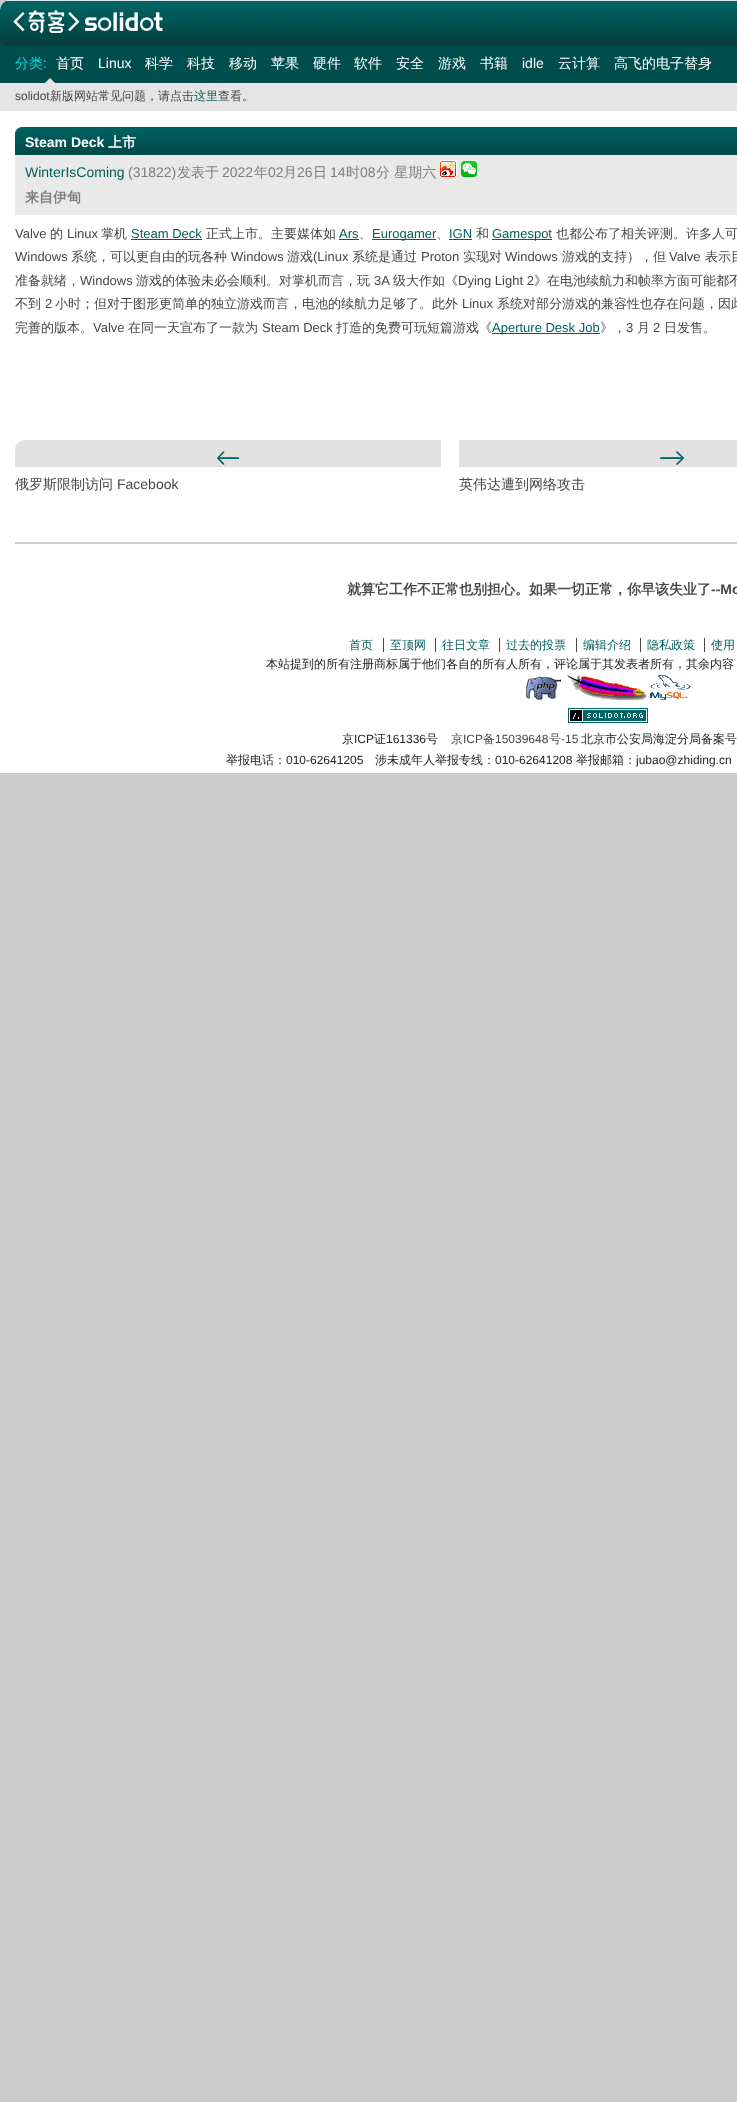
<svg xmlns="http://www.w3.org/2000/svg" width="737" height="2102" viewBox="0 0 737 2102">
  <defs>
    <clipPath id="clip1"><rect x="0" y="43" width="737" height="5"/></clipPath>
  </defs>
  <rect width="100%" height="100%" fill="rgb(204,204,204)"/>
  <path d="M10 0H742C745 0 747 2 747 5V773H0V10C0 4.5 4.5 0 10 0Z" fill="rgb(255,255,255)"/>
  <rect x="0" y="43" width="737" height="40" fill="rgb(0,77,77)"/>
  <g clip-path="url(#clip1)">
    <rect x="3" y="6" width="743" height="37" fill="rgba(0,0,0,0.5)" filter="blur(3px)"/>
  </g>
  <image x="0" y="0" width="737" height="43" href="pic1.png"/>
  <image x="13" y="10" width="150" height="24" href="pic2.png"/>
  <text x="15" y="68" font-family="WenQuanYi Zen Hei" font-size="14" font-weight="500" fill="rgb(8,222,222)">分类</text>
  <text x="43" y="68" font-family="Liberation Sans" font-size="14" fill="rgb(8,222,222)">:</text>
  <text x="56" y="68" font-family="WenQuanYi Zen Hei" font-size="14" font-weight="500" fill="rgb(255,255,255)">首页</text>
  <text x="98" y="68" font-family="Liberation Sans" font-size="14" fill="rgb(255,255,255)">Linux</text>
  <g font-family="WenQuanYi Zen Hei" font-size="14" font-weight="500" fill="rgb(255,255,255)">
    <text x="145" y="68">科学</text>
    <text x="187" y="68">科技</text>
    <text x="229" y="68">移动</text>
    <text x="271" y="68">苹果</text>
    <text x="313" y="68">硬件</text>
    <text x="354" y="68">软件</text>
    <text x="396" y="68">安全</text>
    <text x="438" y="68">游戏</text>
    <text x="480" y="68">书籍</text>
  </g>
  <text x="522" y="68" font-family="Liberation Sans" font-size="14" fill="rgb(255,255,255)">idle</text>
  <g font-family="WenQuanYi Zen Hei" font-size="14" font-weight="500" fill="rgb(255,255,255)">
    <text x="558" y="68">云计算</text>
    <text x="614" y="68">高飞的电子替身</text>
  </g>
  <rect x="0" y="83" width="737" height="28" fill="rgb(229,229,229)"/>
  <path d="M55 83H45L50 78Z" fill="rgb(229,229,229)"/>
  <text x="15" y="100" font-family="Liberation Sans" font-size="12" fill="rgb(71,71,71)">solidot</text>
  <text x="50" y="100" font-family="WenQuanYi Zen Hei" font-size="12" font-weight="500" fill="rgb(71,71,71)">新版网站常见问题，请点击</text>
  <text x="194" y="100" font-family="WenQuanYi Zen Hei" font-size="12" font-weight="500" fill="rgb(0,93,93)">这里</text>
  <text x="218" y="100" font-family="WenQuanYi Zen Hei" font-size="12" font-weight="500" fill="rgb(71,71,71)">查看。</text>
  <rect x="15" y="542" width="722" height="2" fill="rgb(204,204,204)"/>
  <image x="15" y="127" width="9" height="28" href="pic3.png"/>
  <image x="24" y="127" width="713" height="28" href="pic4.png"/>
  <text x="25" y="147" font-family="Liberation Sans" font-size="14" font-weight="bold" fill="rgb(255,255,255)">Steam Deck</text>
  <text x="108" y="147" font-family="WenQuanYi Zen Hei" font-size="14" font-weight="bold" fill="rgb(255,255,255)">上市</text>
  <rect x="15" y="155" width="722" height="60" fill="rgb(233,233,233)"/>
  <text x="25" y="177" font-family="Liberation Sans" font-size="14" fill="rgb(0,93,93)">WinterIsComing</text>
  <text x="128" y="177" font-family="Liberation Sans" font-size="14" fill="rgb(125,125,125)">(31822)</text>
  <text x="177" y="177" font-family="WenQuanYi Zen Hei" font-size="14" font-weight="500" fill="rgb(125,125,125)">发表于</text>
  <text x="222" y="177" font-family="Liberation Sans" font-size="14" fill="rgb(125,125,125)">2022</text>
  <text x="254" y="177" font-family="WenQuanYi Zen Hei" font-size="14" font-weight="500" fill="rgb(125,125,125)">年</text>
  <text x="268" y="177" font-family="Liberation Sans" font-size="14" fill="rgb(125,125,125)">02</text>
  <text x="283" y="177" font-family="WenQuanYi Zen Hei" font-size="14" font-weight="500" fill="rgb(125,125,125)">月</text>
  <text x="297" y="177" font-family="Liberation Sans" font-size="14" fill="rgb(125,125,125)">26</text>
  <text x="313" y="177" font-family="WenQuanYi Zen Hei" font-size="14" font-weight="500" fill="rgb(125,125,125)">日</text>
  <text x="330" y="177" font-family="Liberation Sans" font-size="14" fill="rgb(125,125,125)">14</text>
  <text x="346" y="177" font-family="WenQuanYi Zen Hei" font-size="14" font-weight="500" fill="rgb(125,125,125)">时</text>
  <text x="360" y="177" font-family="Liberation Sans" font-size="14" fill="rgb(125,125,125)">08</text>
  <text x="376" y="177" font-family="WenQuanYi Zen Hei" font-size="14" font-weight="500" fill="rgb(125,125,125)">分 星期六</text>
  <image x="440" y="160" width="17" height="17" href="pic5.png"/>
  <image x="461" y="161" width="16" height="16" href="pic6.png"/>
  <text x="25" y="202" font-family="WenQuanYi Zen Hei" font-size="14" font-weight="bold" fill="rgb(125,125,125)">来自伊甸</text>
  <text x="15" y="238" font-family="Liberation Sans" font-size="13" fill="rgb(71,71,71)">Valve</text>
  <text x="50" y="238" font-family="WenQuanYi Zen Hei" font-size="13" font-weight="500" fill="rgb(71,71,71)">的</text>
  <text x="67" y="238" font-family="Liberation Sans" font-size="13" fill="rgb(71,71,71)">Linux</text>
  <text x="101" y="238" font-family="WenQuanYi Zen Hei" font-size="13" font-weight="500" fill="rgb(71,71,71)">掌机</text>
  <text x="131" y="238" font-family="Liberation Sans" font-size="13" fill="rgb(0,93,93)">Steam Deck</text>
  <rect x="131" y="239" width="71" height="1" fill="rgb(0,93,93)"/>
  <text x="206" y="238" font-family="WenQuanYi Zen Hei" font-size="13" font-weight="500" fill="rgb(71,71,71)">正式上市。主要媒体如</text>
  <text x="339" y="238" font-family="Liberation Sans" font-size="13" fill="rgb(0,93,93)">Ars</text>
  <rect x="339" y="239" width="20" height="1" fill="rgb(0,93,93)"/>
  <text x="359" y="238" font-family="WenQuanYi Zen Hei" font-size="13" font-weight="500" fill="rgb(71,71,71)">、</text>
  <rect x="372" y="239" width="64" height="1" fill="rgb(0,93,93)"/>
  <text x="372" y="238" font-family="Liberation Sans" font-size="13" fill="rgb(0,93,93)">Eurogamer</text>
  <text x="436" y="238" font-family="WenQuanYi Zen Hei" font-size="13" font-weight="500" fill="rgb(71,71,71)">、</text>
  <text x="449" y="238" font-family="Liberation Sans" font-size="13" fill="rgb(0,93,93)">IGN</text>
  <rect x="449" y="239" width="23" height="1" fill="rgb(0,93,93)"/>
  <text x="476" y="238" font-family="WenQuanYi Zen Hei" font-size="13" font-weight="500" fill="rgb(71,71,71)">和</text>
  <rect x="492" y="239" width="60" height="1" fill="rgb(0,93,93)"/>
  <text x="492" y="238" font-family="Liberation Sans" font-size="13" fill="rgb(0,93,93)">Gamespot</text>
  <text x="556" y="238" font-family="WenQuanYi Zen Hei" font-size="13" font-weight="500" fill="rgb(71,71,71)">也都公布了相关评测。许多人可</text>
  <text x="15" y="261" font-family="Liberation Sans" font-size="13" fill="rgb(71,71,71)">Windows</text>
  <text x="71" y="261" font-family="WenQuanYi Zen Hei" font-size="13" font-weight="500" fill="rgb(71,71,71)">系统，可以更自由的玩各种</text>
  <text x="231" y="261" font-family="Liberation Sans" font-size="13" fill="rgb(71,71,71)">Windows</text>
  <text x="287" y="261" font-family="WenQuanYi Zen Hei" font-size="13" font-weight="500" fill="rgb(71,71,71)">游戏</text>
  <text x="313" y="261" font-family="Liberation Sans" font-size="13" fill="rgb(71,71,71)">(Linux</text>
  <text x="352" y="261" font-family="WenQuanYi Zen Hei" font-size="13" font-weight="500" fill="rgb(71,71,71)">系统是通过</text>
  <text x="421" y="261" font-family="Liberation Sans" font-size="13" fill="rgb(71,71,71)">Proton</text>
  <text x="463" y="261" font-family="WenQuanYi Zen Hei" font-size="13" font-weight="500" fill="rgb(71,71,71)">实现对</text>
  <text x="505" y="261" font-family="Liberation Sans" font-size="13" fill="rgb(71,71,71)">Windows</text>
  <text x="562" y="261" font-family="WenQuanYi Zen Hei" font-size="13" font-weight="500" fill="rgb(71,71,71)">游戏的支持），但</text>
  <text x="669" y="261" font-family="Liberation Sans" font-size="13" fill="rgb(71,71,71)">Valve</text>
  <g font-family="WenQuanYi Zen Hei" font-size="13" font-weight="500" fill="rgb(71,71,71)">
    <text x="705" y="261">表示目</text>
    <text x="15" y="285">准备就绪，</text>
  </g>
  <text x="80" y="285" font-family="Liberation Sans" font-size="13" fill="rgb(71,71,71)">Windows</text>
  <text x="136" y="285" font-family="WenQuanYi Zen Hei" font-size="13" font-weight="500" fill="rgb(71,71,71)">游戏的体验未必会顺利。对掌机而言，玩</text>
  <text x="374" y="285" font-family="Liberation Sans" font-size="13" fill="rgb(71,71,71)">3A</text>
  <text x="393" y="285" font-family="WenQuanYi Zen Hei" font-size="13" font-weight="500" fill="rgb(71,71,71)">级大作如《</text>
  <text x="458" y="285" font-family="Liberation Sans" font-size="13" fill="rgb(71,71,71)">Dying Light 2</text>
  <g font-family="WenQuanYi Zen Hei" font-size="13" font-weight="500" fill="rgb(71,71,71)">
    <text x="534" y="285">》在电池续航力和帧率方面可能都不</text>
    <text x="15" y="308">不到</text>
  </g>
  <text x="45" y="308" font-family="Liberation Sans" font-size="13" fill="rgb(71,71,71)">2</text>
  <text x="55" y="308" font-family="WenQuanYi Zen Hei" font-size="13" font-weight="500" fill="rgb(71,71,71)">小时；但对于图形更简单的独立游戏而言，电池的续航力足够了。此外</text>
  <text x="462" y="308" font-family="Liberation Sans" font-size="13" fill="rgb(71,71,71)">Linux</text>
  <g font-family="WenQuanYi Zen Hei" font-size="13" font-weight="500" fill="rgb(71,71,71)">
    <text x="497" y="308">系统对部分游戏的兼容性也存在问题，因此</text>
    <text x="15" y="332">完善的版本。</text>
  </g>
  <text x="93" y="332" font-family="Liberation Sans" font-size="13" fill="rgb(71,71,71)">Valve</text>
  <text x="128" y="332" font-family="WenQuanYi Zen Hei" font-size="13" font-weight="500" fill="rgb(71,71,71)">在同一天宣布了一款为</text>
  <text x="262" y="332" font-family="Liberation Sans" font-size="13" fill="rgb(71,71,71)">Steam Deck</text>
  <text x="336" y="332" font-family="WenQuanYi Zen Hei" font-size="13" font-weight="500" fill="rgb(71,71,71)">打造的免费可玩短篇游戏《</text>
  <rect x="492" y="333" width="108" height="1" fill="rgb(0,93,93)"/>
  <text x="492" y="332" font-family="Liberation Sans" font-size="13" fill="rgb(0,93,93)">Aperture Desk Job</text>
  <text x="600" y="332" font-family="WenQuanYi Zen Hei" font-size="13" font-weight="500" fill="rgb(71,71,71)">》，</text>
  <text x="626" y="332" font-family="Liberation Sans" font-size="13" fill="rgb(71,71,71)">3</text>
  <text x="637" y="332" font-family="WenQuanYi Zen Hei" font-size="13" font-weight="500" fill="rgb(71,71,71)">月</text>
  <text x="653" y="332" font-family="Liberation Sans" font-size="13" fill="rgb(71,71,71)">2</text>
  <text x="664" y="332" font-family="WenQuanYi Zen Hei" font-size="13" font-weight="500" fill="rgb(71,71,71)">日发售。</text>
  <path d="M25 440H441V467H15V450C15 444.5 19.5 440 25 440Z" fill="rgb(225,225,225)"/>
  <image x="217" y="451" width="22" height="14" href="pic7.png"/>
  <text x="15" y="489" font-family="WenQuanYi Zen Hei" font-size="14" font-weight="500" fill="rgb(71,71,71)">俄罗斯限制访问</text>
  <text x="117" y="489" font-family="Liberation Sans" font-size="14" fill="rgb(71,71,71)">Facebook</text>
  <rect x="459" y="440" width="278" height="27" fill="rgb(225,225,225)"/>
  <image x="660" y="451" width="24" height="14" href="pic8.png"/>
  <text x="459" y="489" font-family="WenQuanYi Zen Hei" font-size="14" font-weight="500" fill="rgb(71,71,71)">英伟达遭到网络攻击</text>
  <text x="347" y="594" font-family="WenQuanYi Zen Hei" font-size="14" font-weight="bold" fill="rgb(71,71,71)">就算它工作不正常也别担心。如果一切正常，你早该失业了</text>
  <text x="711" y="594" font-family="Liberation Sans" font-size="14" font-weight="bold" fill="rgb(71,71,71)">--Mo</text>
  <text x="349" y="649" font-family="WenQuanYi Zen Hei" font-size="12" font-weight="500" fill="rgb(0,93,93)">首页</text>
  <rect x="383" y="638" width="1" height="14" fill="rgb(71,71,71)"/>
  <text x="390" y="649" font-family="WenQuanYi Zen Hei" font-size="12" font-weight="500" fill="rgb(0,93,93)">至顶网</text>
  <rect x="435" y="638" width="1" height="14" fill="rgb(71,71,71)"/>
  <text x="442" y="649" font-family="WenQuanYi Zen Hei" font-size="12" font-weight="500" fill="rgb(0,93,93)">往日文章</text>
  <rect x="499" y="638" width="1" height="14" fill="rgb(71,71,71)"/>
  <text x="506" y="649" font-family="WenQuanYi Zen Hei" font-size="12" font-weight="500" fill="rgb(0,93,93)">过去的投票</text>
  <rect x="576" y="638" width="1" height="14" fill="rgb(71,71,71)"/>
  <text x="583" y="649" font-family="WenQuanYi Zen Hei" font-size="12" font-weight="500" fill="rgb(0,93,93)">编辑介绍</text>
  <rect x="640" y="638" width="1" height="14" fill="rgb(71,71,71)"/>
  <text x="647" y="649" font-family="WenQuanYi Zen Hei" font-size="12" font-weight="500" fill="rgb(0,93,93)">隐私政策</text>
  <rect x="704" y="638" width="1" height="14" fill="rgb(71,71,71)"/>
  <text x="711" y="649" font-family="WenQuanYi Zen Hei" font-size="12" font-weight="500" fill="rgb(0,93,93)">使用</text>
  <text x="266" y="668" font-family="WenQuanYi Zen Hei" font-size="12" font-weight="500" fill="rgb(34,34,34)">本站提到的所有注册商标属于他们各自的所有人所有，评论属于其发表者所有，其余内容</text>
  <image x="526" y="676" width="35" height="24" href="pic9.png"/>
  <image x="567" y="675" width="80" height="25" href="pic10.png"/>
  <image x="650" y="675" width="41" height="25" href="pic11.png"/>
  <image x="568" y="708" width="80" height="15" href="pic12.png"/>
  <text x="342" y="743" font-family="WenQuanYi Zen Hei" font-size="12" font-weight="500" fill="rgb(34,34,34)">京</text>
  <text x="354" y="743" font-family="Liberation Sans" font-size="12" fill="rgb(34,34,34)">ICP</text>
  <text x="374" y="743" font-family="WenQuanYi Zen Hei" font-size="12" font-weight="500" fill="rgb(34,34,34)">证</text>
  <text x="386" y="743" font-family="Liberation Sans" font-size="12" fill="rgb(34,34,34)">161336</text>
  <text x="426" y="743" font-family="WenQuanYi Zen Hei" font-size="12" font-weight="500" fill="rgb(34,34,34)">号</text>
  <text x="451" y="743" font-family="WenQuanYi Zen Hei" font-size="12" font-weight="500" fill="rgb(71,71,71)">京</text>
  <text x="463" y="743" font-family="Liberation Sans" font-size="12" fill="rgb(71,71,71)">ICP</text>
  <text x="483" y="743" font-family="WenQuanYi Zen Hei" font-size="12" font-weight="500" fill="rgb(71,71,71)">备</text>
  <text x="495" y="743" font-family="Liberation Sans" font-size="12" fill="rgb(71,71,71)">15039648</text>
  <text x="549" y="743" font-family="WenQuanYi Zen Hei" font-size="12" font-weight="500" fill="rgb(71,71,71)">号</text>
  <text x="561" y="743" font-family="Liberation Sans" font-size="12" fill="rgb(71,71,71)">-15</text>
  <g font-family="WenQuanYi Zen Hei" font-size="12" font-weight="500" fill="rgb(34,34,34)">
    <text x="581" y="743">北京市公安局海淀分局备案号</text>
    <text x="226" y="764">举报电话：</text>
  </g>
  <text x="286" y="764" font-family="Liberation Sans" font-size="12" fill="rgb(34,34,34)">010-62641205</text>
  <text x="375" y="764" font-family="WenQuanYi Zen Hei" font-size="12" font-weight="500" fill="rgb(34,34,34)">涉未成年人举报专线：</text>
  <text x="495" y="764" font-family="Liberation Sans" font-size="12" fill="rgb(34,34,34)">010-62641208</text>
  <text x="576" y="764" font-family="WenQuanYi Zen Hei" font-size="12" font-weight="500" fill="rgb(34,34,34)">举报邮箱：</text>
  <text x="636" y="764" font-family="Liberation Sans" font-size="12" fill="rgb(34,34,34)">jubao@zhiding.cn</text>
</svg>
